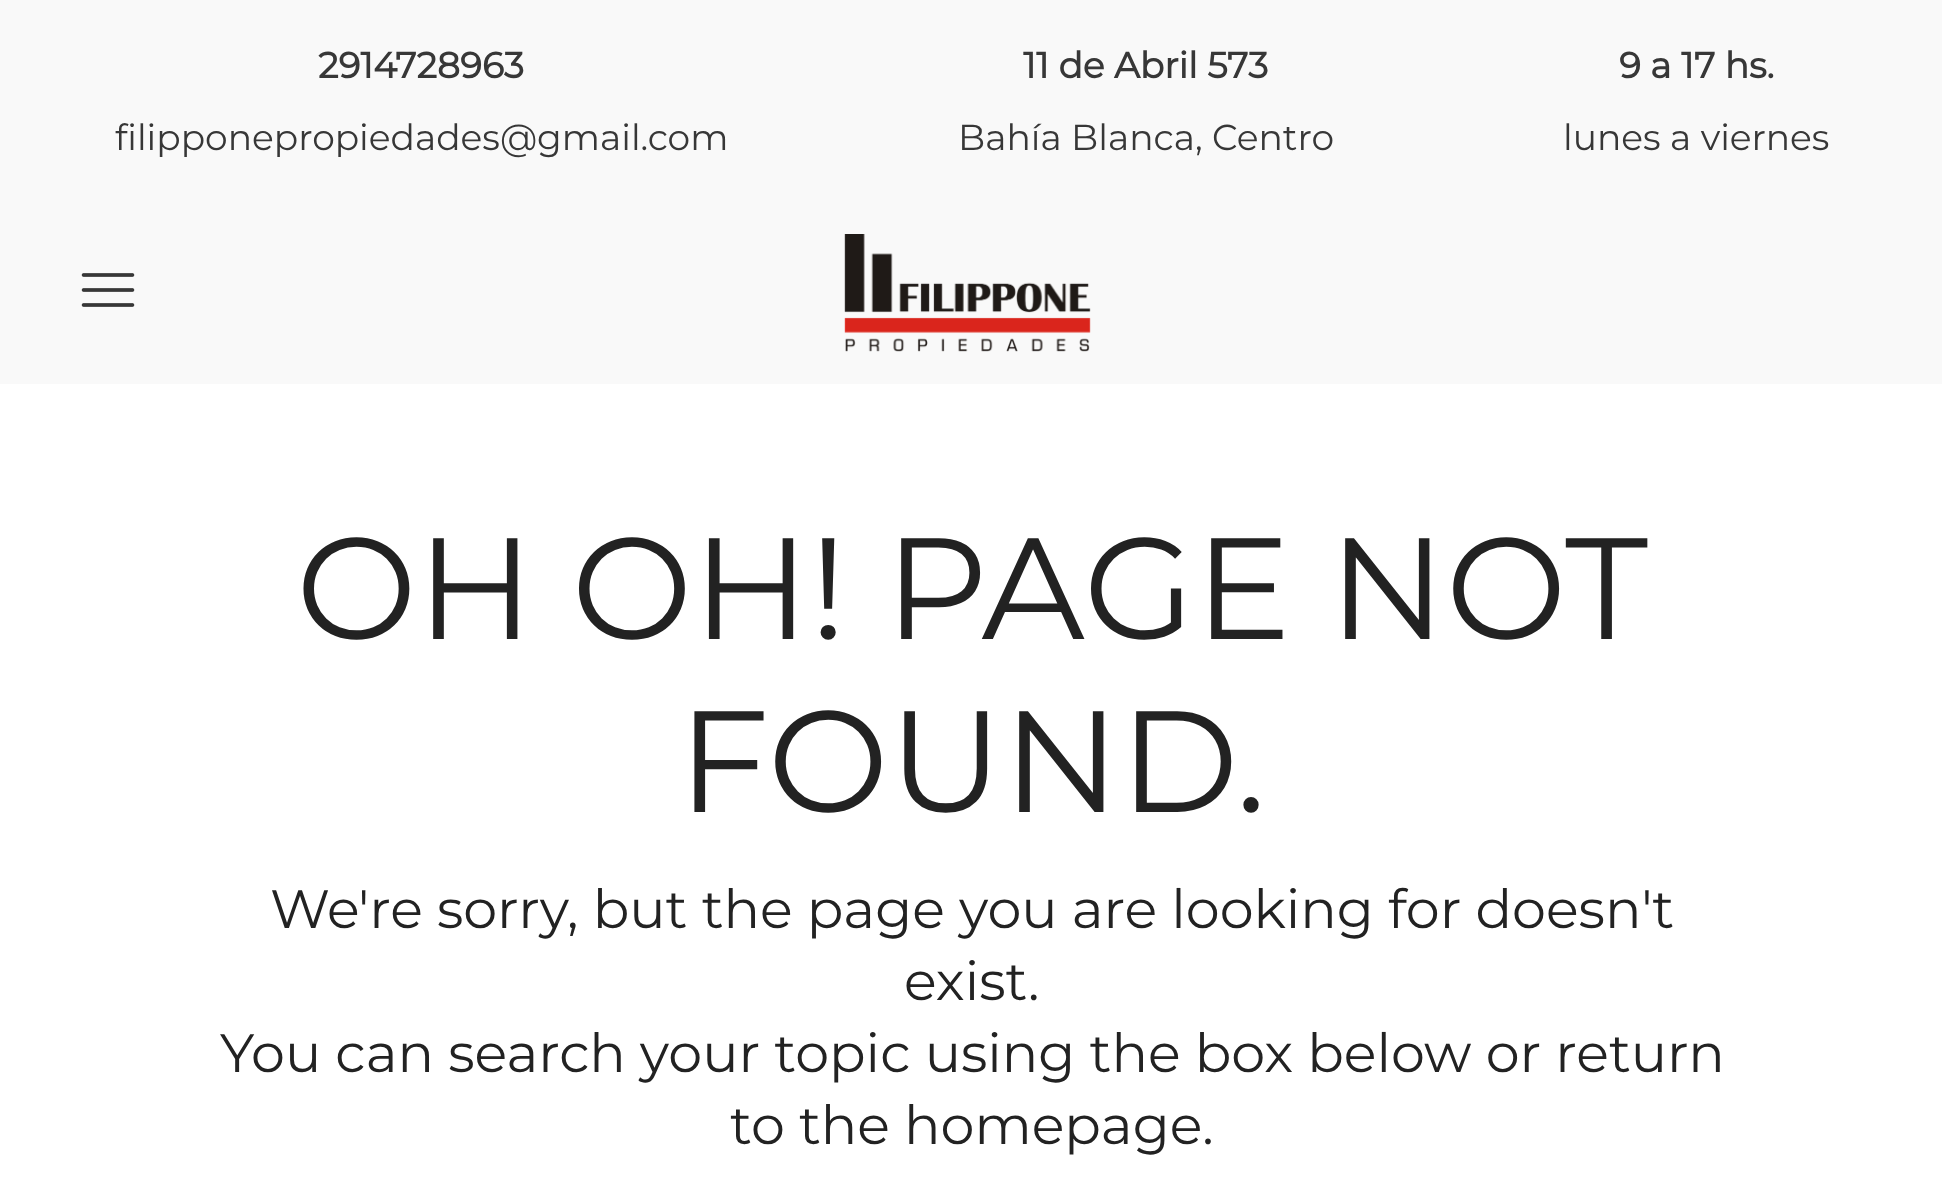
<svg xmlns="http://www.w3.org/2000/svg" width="1942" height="1188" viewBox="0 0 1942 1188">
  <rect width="100%" height="100%" fill="rgb(255,255,255)"/>
  <rect x="0" y="0" width="1942" height="384" fill="rgb(249,249,249)"/>
  <text x="318" y="78" font-family="Montserrat" font-size="36" font-weight="bold" fill="rgb(55,55,55)">2914728963</text>
  <text x="115" y="150" font-family="Montserrat" font-size="36" font-weight="100" fill="rgb(55,55,55)">filipponepropiedades@gmail.com</text>
  <text x="1023" y="78" font-family="Montserrat" font-size="36" font-weight="bold" fill="rgb(55,55,55)">11 de Abril 573</text>
  <text x="958" y="150" font-family="Montserrat" font-size="36" font-weight="100" fill="rgb(55,55,55)">Bahía Blanca, Centro</text>
  <text x="1619" y="78" font-family="Montserrat" font-size="36" font-weight="bold" fill="rgb(55,55,55)">9 a 17 hs.</text>
  <text x="1563" y="150" font-family="Montserrat" font-size="36" font-weight="100" fill="rgb(55,55,55)">lunes a viernes</text>
  <image x="81" y="273" width="54" height="34" href="pic1.png"/>
  <image x="844" y="234" width="247" height="118" href="pic2.png"/>
  <g font-family="Montserrat" font-size="144" font-weight="100" fill="rgb(34,34,34)">
    <text x="296" y="639">OH OH! PAGE NOT</text>
    <text x="678" y="812">FOUND.</text>
  </g>
  <g font-family="Montserrat" font-size="54" font-weight="100" fill="rgb(34,34,34)">
    <text x="270" y="928">We're sorry, but the page you are looking for doesn't</text>
    <text x="904" y="1000">exist.</text>
    <text x="220" y="1072">You can search your topic using the box below or return</text>
    <text x="730" y="1144">to the homepage.</text>
  </g>
</svg>
